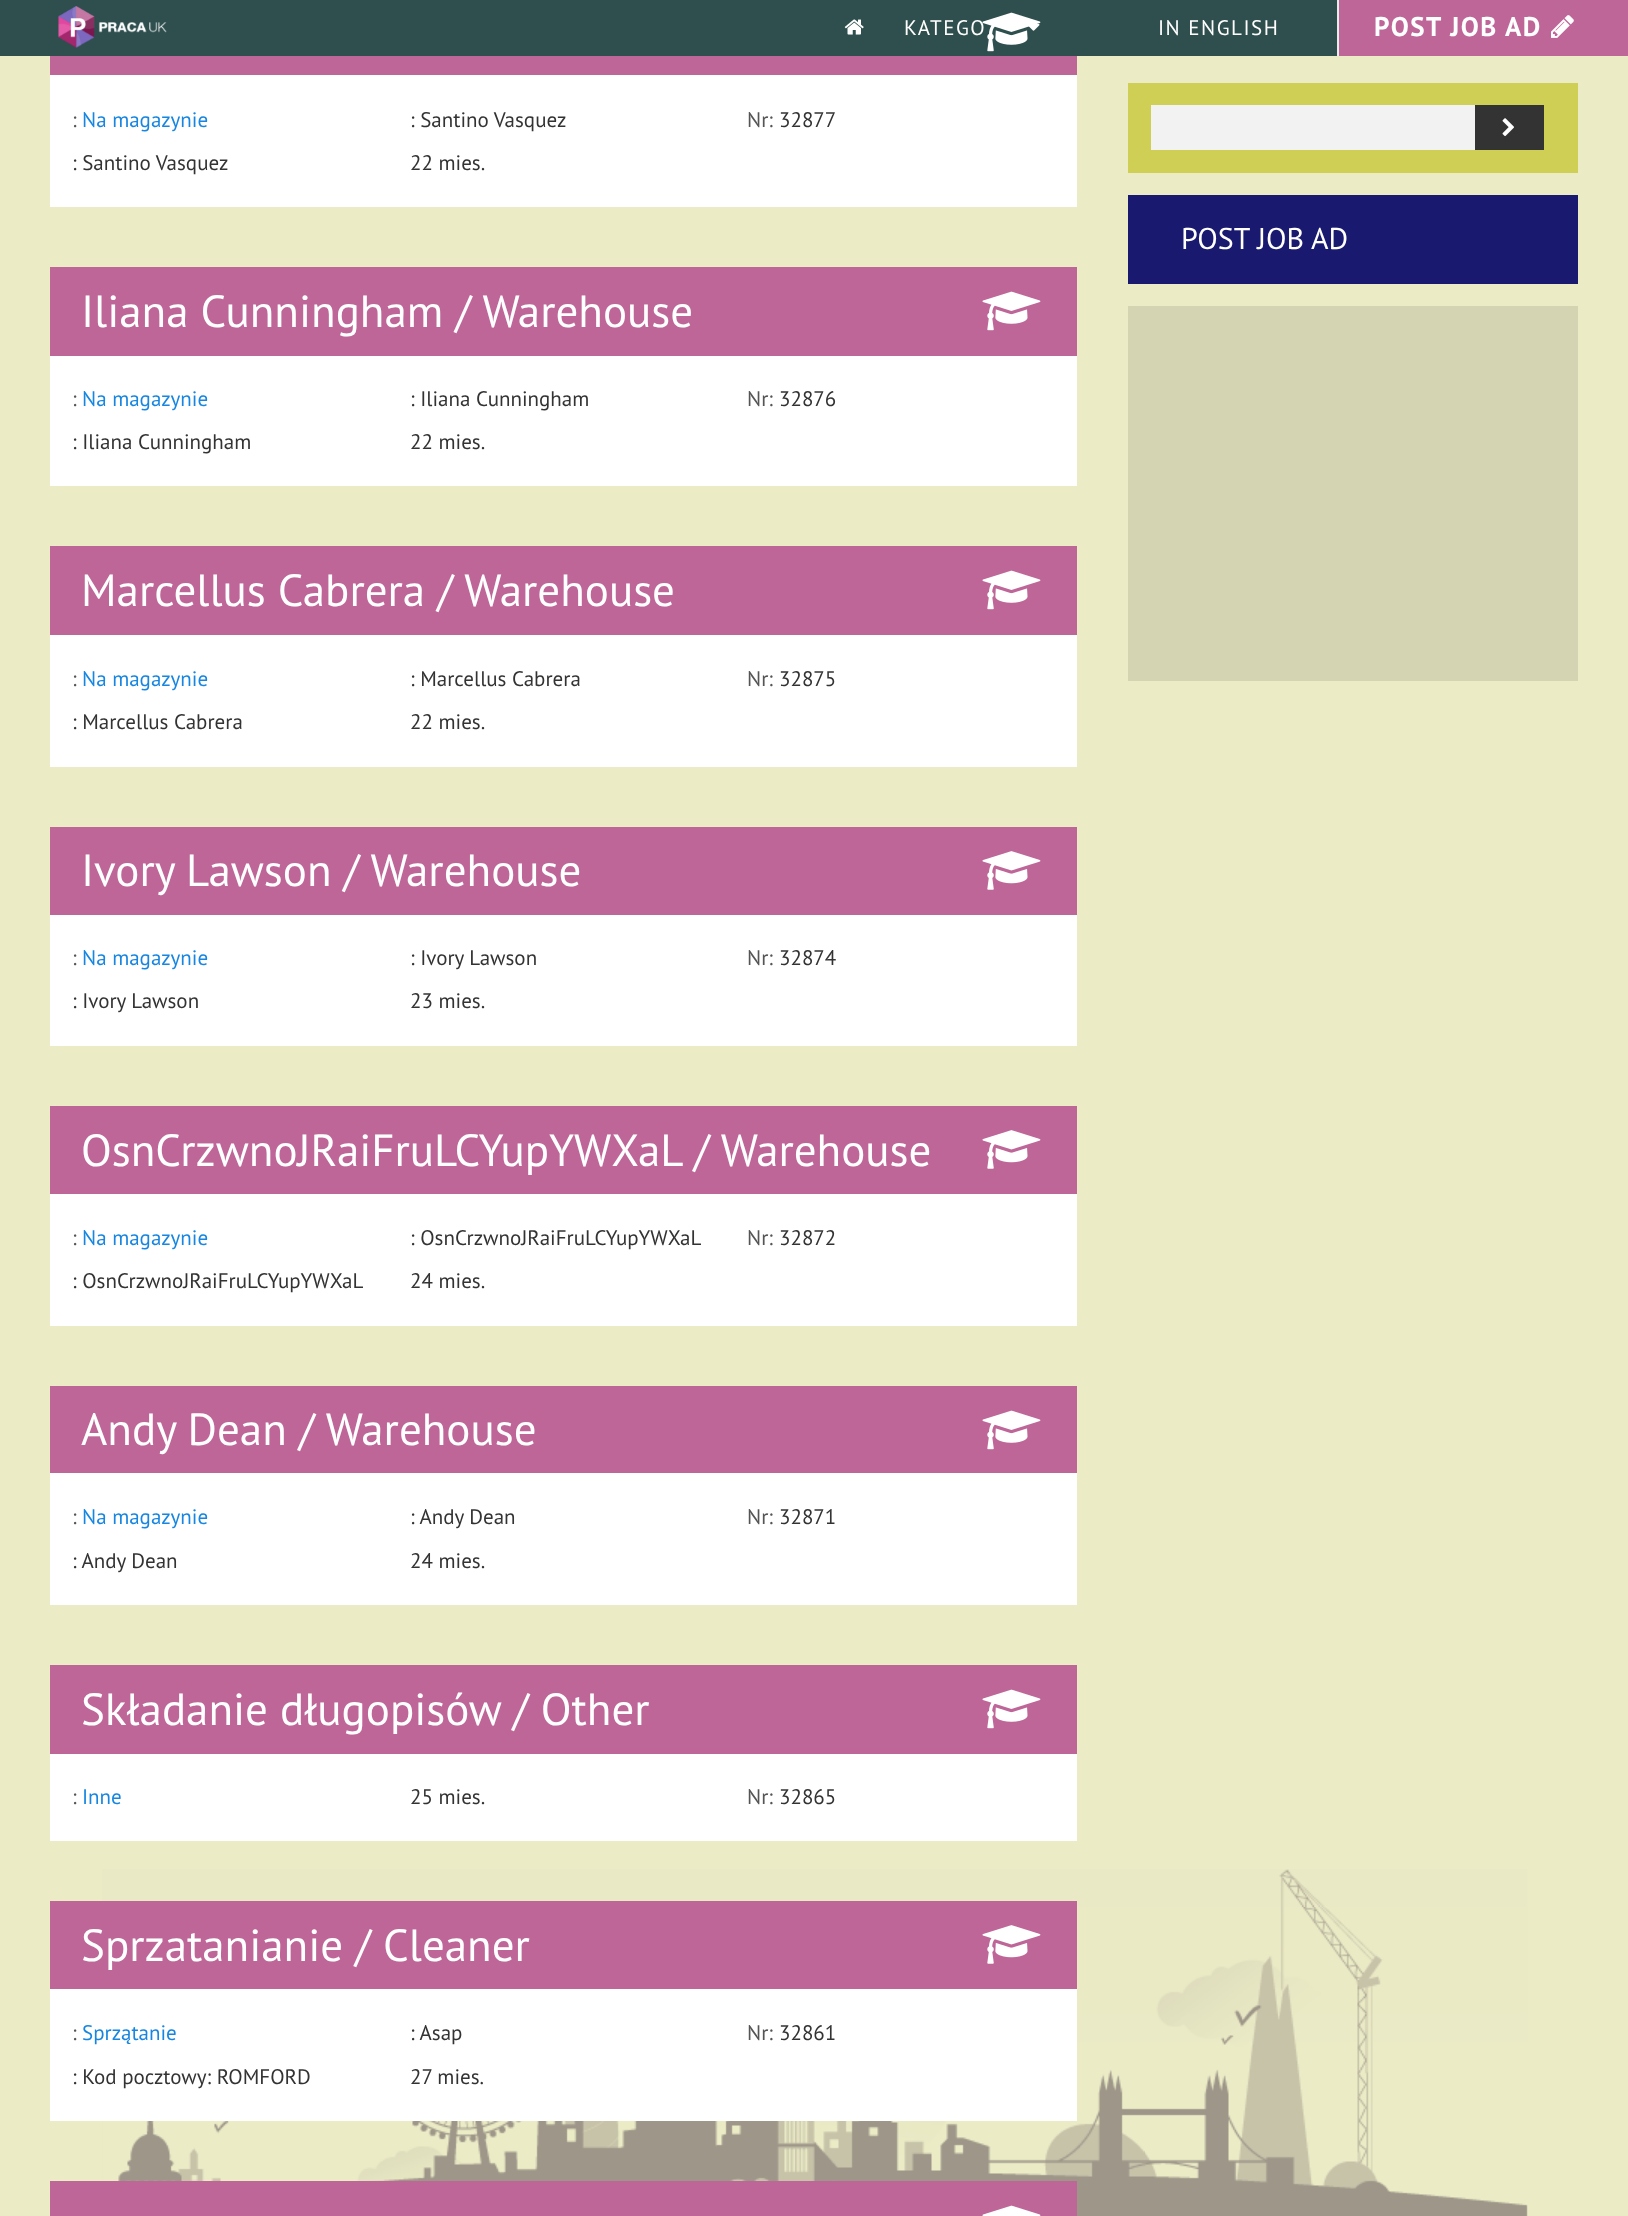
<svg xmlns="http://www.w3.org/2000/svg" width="1628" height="2216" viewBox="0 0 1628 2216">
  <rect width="100%" height="100%" fill="rgb(235,235,198)"/>
  <image x="101" y="1869" width="1427" height="347" href="pic1.png"/>
  <rect x="0" y="0" width="1337" height="56" fill="rgb(47,79,79)"/>
  <image x="58" y="6" width="109" height="42" href="pic2.png"/>
  <image x="844" y="19" width="20" height="16" href="pic3.png"/>
  <text x="904" y="35" font-family="PT Sans" font-size="21" letter-spacing="1.5" fill="rgb(255,255,255)">KATEGO</text>
  <image x="1028" y="24" width="12" height="7" href="pic4.png"/>
  <text x="1158" y="35" font-family="PT Sans" font-size="21" letter-spacing="1.5" fill="rgb(255,255,255)">IN ENGLISH</text>
  <rect x="1339" y="0" width="289" height="56" fill="rgb(190,102,152)"/>
  <rect x="1337" y="0" width="2" height="56" fill="rgb(235,235,235)"/>
  <text x="1374" y="36" font-family="PT Sans" font-size="27" font-weight="bold" letter-spacing="1.5" fill="rgb(255,255,255)">POST JOB AD</text>
  <image x="1551" y="15" width="23" height="23" href="pic5.png"/>
  <image x="982" y="12" width="59" height="40" href="pic6.png"/>
  <rect x="50" y="56" width="1027" height="19" fill="rgb(190,102,152)"/>
  <rect x="50" y="75" width="1027" height="132" fill="rgb(255,255,255)"/>
  <text x="72" y="127" font-family="PT Sans" font-size="21" fill="rgb(85,85,85)">:</text>
  <text x="82" y="127" font-family="PT Sans" font-size="21" fill="rgb(23,134,225)">Na magazynie</text>
  <text x="410" y="127" font-family="PT Sans" font-size="21" fill="rgb(51,51,51)">: Santino Vasquez</text>
  <text x="747" y="127" font-family="PT Sans" font-size="21" fill="rgb(85,85,85)">Nr:</text>
  <g font-family="PT Sans" font-size="21" fill="rgb(51,51,51)">
    <text x="779" y="127">32877</text>
    <text x="72" y="170">: Santino Vasquez</text>
    <text x="410" y="170">22 mies.</text>
  </g>
  <rect x="50" y="267" width="1027" height="89" fill="rgb(190,102,152)"/>
  <text x="81" y="327" font-family="PT Sans" font-size="45" fill="rgb(255,255,255)">Iliana Cunningham / Warehouse</text>
  <image x="982" y="291" width="59" height="40" href="pic7.png"/>
  <rect x="50" y="356" width="1027" height="130" fill="rgb(255,255,255)"/>
  <text x="72" y="406" font-family="PT Sans" font-size="21" fill="rgb(85,85,85)">:</text>
  <text x="82" y="406" font-family="PT Sans" font-size="21" fill="rgb(23,134,225)">Na magazynie</text>
  <text x="410" y="406" font-family="PT Sans" font-size="21" fill="rgb(51,51,51)">: Iliana Cunningham</text>
  <text x="747" y="406" font-family="PT Sans" font-size="21" fill="rgb(85,85,85)">Nr:</text>
  <g font-family="PT Sans" font-size="21" fill="rgb(51,51,51)">
    <text x="779" y="406">32876</text>
    <text x="72" y="449">: Iliana Cunningham</text>
    <text x="410" y="449">22 mies.</text>
  </g>
  <rect x="50" y="546" width="1027" height="89" fill="rgb(190,102,152)"/>
  <text x="81" y="606" font-family="PT Sans" font-size="45" fill="rgb(255,255,255)">Marcellus Cabrera / Warehouse</text>
  <image x="982" y="570" width="59" height="40" href="pic7.png"/>
  <rect x="50" y="635" width="1027" height="132" fill="rgb(255,255,255)"/>
  <text x="72" y="686" font-family="PT Sans" font-size="21" fill="rgb(85,85,85)">:</text>
  <text x="82" y="686" font-family="PT Sans" font-size="21" fill="rgb(23,134,225)">Na magazynie</text>
  <text x="410" y="686" font-family="PT Sans" font-size="21" fill="rgb(51,51,51)">: Marcellus Cabrera</text>
  <text x="747" y="686" font-family="PT Sans" font-size="21" fill="rgb(85,85,85)">Nr:</text>
  <g font-family="PT Sans" font-size="21" fill="rgb(51,51,51)">
    <text x="779" y="686">32875</text>
    <text x="72" y="729">: Marcellus Cabrera</text>
    <text x="410" y="729">22 mies.</text>
  </g>
  <rect x="50" y="827" width="1027" height="88" fill="rgb(190,102,152)"/>
  <text x="81" y="886" font-family="PT Sans" font-size="45" fill="rgb(255,255,255)">Ivory Lawson / Warehouse</text>
  <image x="982" y="851" width="59" height="39" href="pic8.png"/>
  <rect x="50" y="915" width="1027" height="131" fill="rgb(255,255,255)"/>
  <text x="72" y="965" font-family="PT Sans" font-size="21" fill="rgb(85,85,85)">:</text>
  <text x="82" y="965" font-family="PT Sans" font-size="21" fill="rgb(23,134,225)">Na magazynie</text>
  <text x="410" y="965" font-family="PT Sans" font-size="21" fill="rgb(51,51,51)">: Ivory Lawson</text>
  <text x="747" y="965" font-family="PT Sans" font-size="21" fill="rgb(85,85,85)">Nr:</text>
  <g font-family="PT Sans" font-size="21" fill="rgb(51,51,51)">
    <text x="779" y="965">32874</text>
    <text x="72" y="1008">: Ivory Lawson</text>
    <text x="410" y="1008">23 mies.</text>
  </g>
  <rect x="50" y="1106" width="1027" height="88" fill="rgb(190,102,152)"/>
  <text x="81" y="1166" font-family="PT Sans" font-size="45" fill="rgb(255,255,255)">OsnCrzwnoJRaiFruLCYupYWXaL / Warehouse</text>
  <image x="982" y="1130" width="59" height="39" href="pic8.png"/>
  <rect x="50" y="1194" width="1027" height="132" fill="rgb(255,255,255)"/>
  <text x="72" y="1245" font-family="PT Sans" font-size="21" fill="rgb(85,85,85)">:</text>
  <text x="82" y="1245" font-family="PT Sans" font-size="21" fill="rgb(23,134,225)">Na magazynie</text>
  <text x="410" y="1245" font-family="PT Sans" font-size="21" fill="rgb(51,51,51)">: OsnCrzwnoJRaiFruLCYupYWXaL</text>
  <text x="747" y="1245" font-family="PT Sans" font-size="21" fill="rgb(85,85,85)">Nr:</text>
  <g font-family="PT Sans" font-size="21" fill="rgb(51,51,51)">
    <text x="779" y="1245">32872</text>
    <text x="72" y="1288">: OsnCrzwnoJRaiFruLCYupYWXaL</text>
    <text x="410" y="1288">24 mies.</text>
  </g>
  <rect x="50" y="1386" width="1027" height="87" fill="rgb(190,102,152)"/>
  <text x="81" y="1445" font-family="PT Sans" font-size="45" fill="rgb(255,255,255)">Andy Dean / Warehouse</text>
  <image x="982" y="1410" width="59" height="40" href="pic7.png"/>
  <rect x="50" y="1473" width="1027" height="132" fill="rgb(255,255,255)"/>
  <text x="72" y="1524" font-family="PT Sans" font-size="21" fill="rgb(85,85,85)">:</text>
  <text x="82" y="1524" font-family="PT Sans" font-size="21" fill="rgb(23,134,225)">Na magazynie</text>
  <text x="410" y="1524" font-family="PT Sans" font-size="21" fill="rgb(51,51,51)">: Andy Dean</text>
  <text x="747" y="1524" font-family="PT Sans" font-size="21" fill="rgb(85,85,85)">Nr:</text>
  <g font-family="PT Sans" font-size="21" fill="rgb(51,51,51)">
    <text x="779" y="1524">32871</text>
    <text x="72" y="1568">: Andy Dean</text>
    <text x="410" y="1568">24 mies.</text>
  </g>
  <rect x="50" y="1665" width="1027" height="89" fill="rgb(190,102,152)"/>
  <text x="81" y="1725" font-family="PT Sans" font-size="45" fill="rgb(255,255,255)">Składanie długopisów / Other</text>
  <image x="982" y="1689" width="59" height="40" href="pic7.png"/>
  <rect x="50" y="1754" width="1027" height="87" fill="rgb(255,255,255)"/>
  <text x="72" y="1804" font-family="PT Sans" font-size="21" fill="rgb(85,85,85)">:</text>
  <text x="82" y="1804" font-family="PT Sans" font-size="21" fill="rgb(23,134,225)">Inne</text>
  <text x="410" y="1804" font-family="PT Sans" font-size="21" fill="rgb(51,51,51)">25 mies.</text>
  <text x="747" y="1804" font-family="PT Sans" font-size="21" fill="rgb(85,85,85)">Nr:</text>
  <text x="779" y="1804" font-family="PT Sans" font-size="21" fill="rgb(51,51,51)">32865</text>
  <rect x="50" y="1901" width="1027" height="88" fill="rgb(190,102,152)"/>
  <text x="81" y="1961" font-family="PT Sans" font-size="45" fill="rgb(255,255,255)">Sprzatanianie / Cleaner</text>
  <image x="982" y="1925" width="59" height="39" href="pic8.png"/>
  <rect x="50" y="1989" width="1027" height="132" fill="rgb(255,255,255)"/>
  <text x="72" y="2040" font-family="PT Sans" font-size="21" fill="rgb(85,85,85)">:</text>
  <text x="82" y="2040" font-family="PT Sans" font-size="21" fill="rgb(23,134,225)">Sprzątanie</text>
  <text x="410" y="2040" font-family="PT Sans" font-size="21" fill="rgb(51,51,51)">: Asap</text>
  <text x="747" y="2040" font-family="PT Sans" font-size="21" fill="rgb(85,85,85)">Nr:</text>
  <g font-family="PT Sans" font-size="21" fill="rgb(51,51,51)">
    <text x="779" y="2040">32861</text>
    <text x="72" y="2084">: Kod pocztowy: ROMFORD</text>
    <text x="410" y="2084">27 mies.</text>
  </g>
  <rect x="50" y="2181" width="1027" height="35" fill="rgb(190,102,152)"/>
  <image x="982" y="2205" width="59" height="11" href="pic9.png"/>
  <rect x="1128" y="83" width="450" height="90" fill="rgb(207,207,86)"/>
  <rect x="1151" y="105" width="324" height="45" fill="rgb(242,242,242)"/>
  <rect x="1475" y="105" width="69" height="45" fill="rgb(51,51,51)"/>
  <image x="1502" y="118" width="12" height="19" href="pic10.png"/>
  <rect x="1128" y="195" width="450" height="89" fill="rgb(25,25,112)"/>
  <text x="1181" y="249" font-family="PT Sans" font-size="30" fill="rgb(255,255,255)">POST JOB AD</text>
  <rect x="1128" y="306" width="450" height="375" fill="rgb(212,212,178)"/>
</svg>
